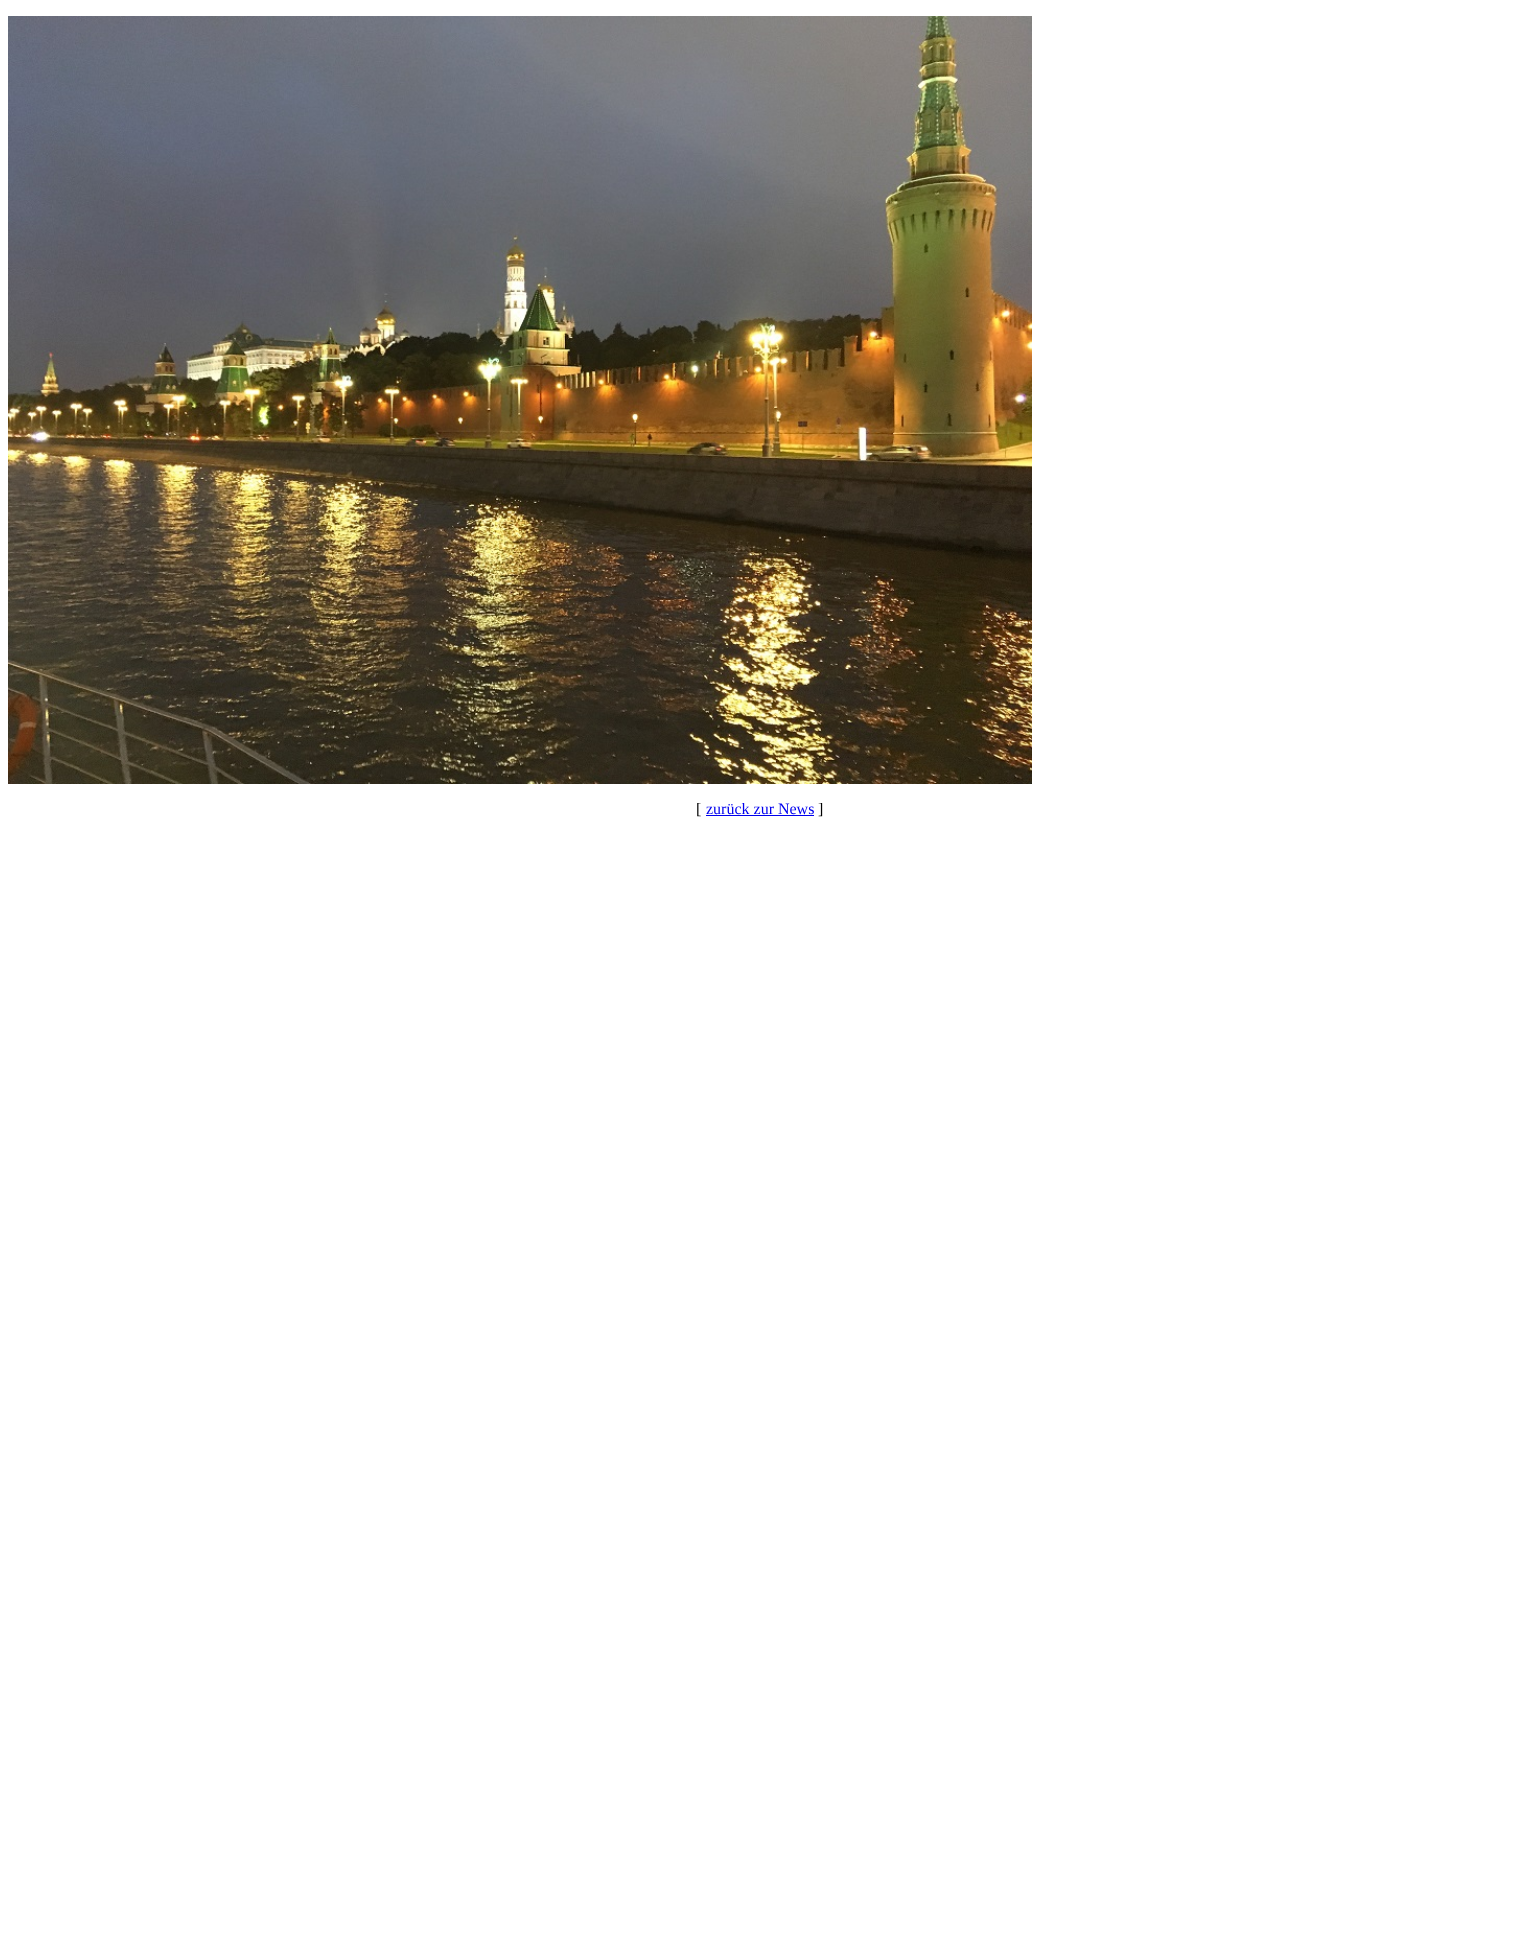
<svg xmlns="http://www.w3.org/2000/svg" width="1520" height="1954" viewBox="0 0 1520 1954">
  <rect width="100%" height="100%" fill="rgb(255,255,255)"/>
  <image x="8" y="16" width="1024" height="768" href="pic1.png"/>
  <text x="696" y="814" font-family="Liberation Serif" font-size="16" fill="rgb(0,0,0)">[</text>
  <text x="706" y="814" font-family="Liberation Serif" font-size="16" fill="rgb(0,0,238)">zurück zur News</text>
  <rect x="706" y="815" width="108" height="1" fill="rgb(0,0,238)"/>
  <text x="818" y="814" font-family="Liberation Serif" font-size="16" fill="rgb(0,0,0)">]</text>
</svg>
